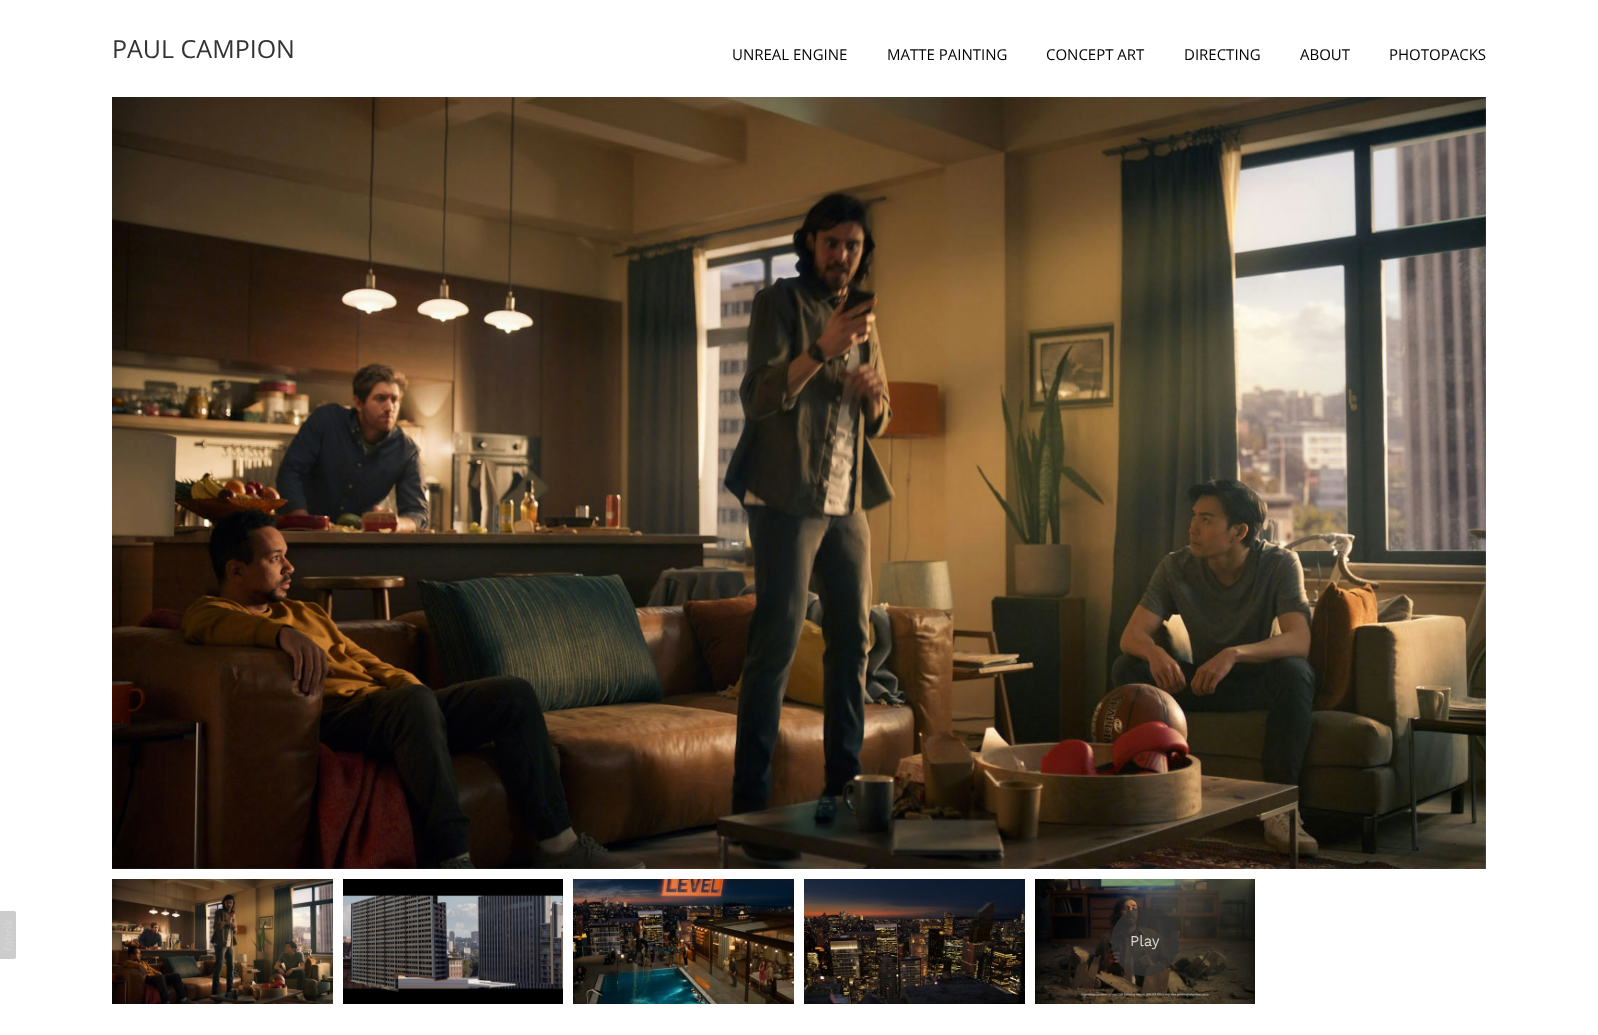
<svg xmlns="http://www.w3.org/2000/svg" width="1598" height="1035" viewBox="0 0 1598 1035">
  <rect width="100%" height="100%" fill="rgb(255,255,255)"/>
  <image x="0" y="911" width="16" height="48" href="pic1.png"/>
  <text x="112" y="58" font-family="Open Sans" font-size="25" fill="rgb(51,51,51)">PAUL CAMPION</text>
  <g font-family="Open Sans" font-size="15" fill="rgb(0,0,0)">
    <text x="732" y="60">UNREAL ENGINE</text>
    <text x="887" y="60">MATTE PAINTING</text>
    <text x="1046" y="60">CONCEPT ART</text>
    <text x="1184" y="60">DIRECTING</text>
    <text x="1300" y="60">ABOUT</text>
    <text x="1389" y="60">PHOTOPACKS</text>
  </g>
  <image x="112" y="97" width="1374" height="772" href="pic2.png"/>
  <image x="112" y="879" width="221" height="125" href="pic3.png"/>
  <image x="343" y="879" width="220" height="125" href="pic4.png"/>
  <image x="573" y="879" width="221" height="125" href="pic5.png"/>
  <image x="804" y="879" width="221" height="125" href="pic6.png"/>
  <image x="1035" y="879" width="220" height="125" href="pic7.png"/>
  <rect x="1111" y="907" width="68" height="69" rx="34" fill="rgba(51,51,51,0.8)"/>
  <text x="1130" y="946" font-family="Work Sans" font-size="15" fill="rgb(217,216,215)">Play</text>
</svg>
